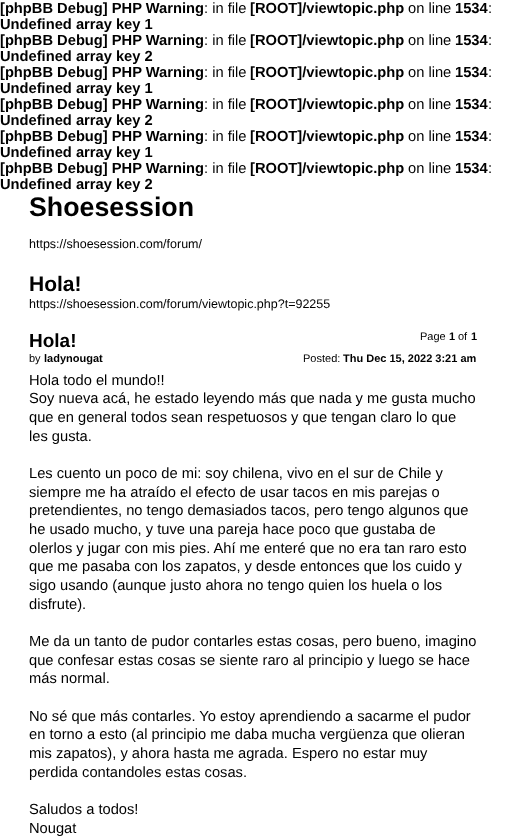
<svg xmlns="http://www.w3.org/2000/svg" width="506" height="837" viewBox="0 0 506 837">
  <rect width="100%" height="100%" fill="rgb(255,255,255)"/>
  <text x="0" y="13" font-family="Liberation Sans" font-size="14.7" font-weight="bold" fill="rgb(0,0,0)">[phpBB Debug] PHP Warning</text>
  <text x="204" y="13" font-family="Liberation Sans" font-size="14.7" fill="rgb(0,0,0)">: in file</text>
  <text x="250" y="13" font-family="Liberation Sans" font-size="14.7" font-weight="bold" fill="rgb(0,0,0)">[ROOT]/viewtopic.php</text>
  <text x="408" y="13" font-family="Liberation Sans" font-size="14.7" fill="rgb(0,0,0)">on line</text>
  <text x="455" y="13" font-family="Liberation Sans" font-size="14.7" font-weight="bold" fill="rgb(0,0,0)">1534</text>
  <text x="488" y="13" font-family="Liberation Sans" font-size="14.7" fill="rgb(0,0,0)">:</text>
  <g font-family="Liberation Sans" font-size="14.7" font-weight="bold" fill="rgb(0,0,0)">
    <text>
      <tspan x="0" y="29">Undefined array key 1</tspan>
      <tspan x="0" y="45">[phpBB Debug] PHP Warning</tspan>
    </text>
  </g>
  <text x="204" y="45" font-family="Liberation Sans" font-size="14.7" fill="rgb(0,0,0)">: in file</text>
  <text x="250" y="45" font-family="Liberation Sans" font-size="14.7" font-weight="bold" fill="rgb(0,0,0)">[ROOT]/viewtopic.php</text>
  <text x="408" y="45" font-family="Liberation Sans" font-size="14.7" fill="rgb(0,0,0)">on line</text>
  <text x="455" y="45" font-family="Liberation Sans" font-size="14.7" font-weight="bold" fill="rgb(0,0,0)">1534</text>
  <text x="488" y="45" font-family="Liberation Sans" font-size="14.7" fill="rgb(0,0,0)">:</text>
  <g font-family="Liberation Sans" font-size="14.7" font-weight="bold" fill="rgb(0,0,0)">
    <text>
      <tspan x="0" y="61">Undefined array key 2</tspan>
      <tspan x="0" y="77">[phpBB Debug] PHP Warning</tspan>
    </text>
  </g>
  <text x="204" y="77" font-family="Liberation Sans" font-size="14.7" fill="rgb(0,0,0)">: in file</text>
  <text x="250" y="77" font-family="Liberation Sans" font-size="14.7" font-weight="bold" fill="rgb(0,0,0)">[ROOT]/viewtopic.php</text>
  <text x="408" y="77" font-family="Liberation Sans" font-size="14.7" fill="rgb(0,0,0)">on line</text>
  <text x="455" y="77" font-family="Liberation Sans" font-size="14.7" font-weight="bold" fill="rgb(0,0,0)">1534</text>
  <text x="488" y="77" font-family="Liberation Sans" font-size="14.7" fill="rgb(0,0,0)">:</text>
  <g font-family="Liberation Sans" font-size="14.7" font-weight="bold" fill="rgb(0,0,0)">
    <text>
      <tspan x="0" y="93">Undefined array key 1</tspan>
      <tspan x="0" y="109">[phpBB Debug] PHP Warning</tspan>
    </text>
  </g>
  <text x="204" y="109" font-family="Liberation Sans" font-size="14.7" fill="rgb(0,0,0)">: in file</text>
  <text x="250" y="109" font-family="Liberation Sans" font-size="14.7" font-weight="bold" fill="rgb(0,0,0)">[ROOT]/viewtopic.php</text>
  <text x="408" y="109" font-family="Liberation Sans" font-size="14.7" fill="rgb(0,0,0)">on line</text>
  <text x="455" y="109" font-family="Liberation Sans" font-size="14.7" font-weight="bold" fill="rgb(0,0,0)">1534</text>
  <text x="488" y="109" font-family="Liberation Sans" font-size="14.7" fill="rgb(0,0,0)">:</text>
  <g font-family="Liberation Sans" font-size="14.7" font-weight="bold" fill="rgb(0,0,0)">
    <text>
      <tspan x="0" y="125">Undefined array key 2</tspan>
      <tspan x="0" y="141">[phpBB Debug] PHP Warning</tspan>
    </text>
  </g>
  <text x="204" y="141" font-family="Liberation Sans" font-size="14.7" fill="rgb(0,0,0)">: in file</text>
  <text x="250" y="141" font-family="Liberation Sans" font-size="14.7" font-weight="bold" fill="rgb(0,0,0)">[ROOT]/viewtopic.php</text>
  <text x="408" y="141" font-family="Liberation Sans" font-size="14.7" fill="rgb(0,0,0)">on line</text>
  <text x="455" y="141" font-family="Liberation Sans" font-size="14.7" font-weight="bold" fill="rgb(0,0,0)">1534</text>
  <text x="488" y="141" font-family="Liberation Sans" font-size="14.7" fill="rgb(0,0,0)">:</text>
  <g font-family="Liberation Sans" font-size="14.7" font-weight="bold" fill="rgb(0,0,0)">
    <text>
      <tspan x="0" y="157">Undefined array key 1</tspan>
      <tspan x="0" y="173">[phpBB Debug] PHP Warning</tspan>
    </text>
  </g>
  <text x="204" y="173" font-family="Liberation Sans" font-size="14.7" fill="rgb(0,0,0)">: in file</text>
  <text x="250" y="173" font-family="Liberation Sans" font-size="14.7" font-weight="bold" fill="rgb(0,0,0)">[ROOT]/viewtopic.php</text>
  <text x="408" y="173" font-family="Liberation Sans" font-size="14.7" fill="rgb(0,0,0)">on line</text>
  <text x="455" y="173" font-family="Liberation Sans" font-size="14.7" font-weight="bold" fill="rgb(0,0,0)">1534</text>
  <text x="488" y="173" font-family="Liberation Sans" font-size="14.7" fill="rgb(0,0,0)">:</text>
  <text x="0" y="189" font-family="Liberation Sans" font-size="14.7" font-weight="bold" fill="rgb(0,0,0)">Undefined array key 2</text>
  <text x="29" y="216" font-family="Liberation Sans" font-size="26.75" font-weight="bold" fill="rgb(0,0,0)">Shoesession</text>
  <text x="29" y="248" font-family="Liberation Sans" font-size="12.5" fill="rgb(0,0,0)">https://shoesession.com/forum/</text>
  <text x="29" y="291" font-family="Liberation Sans" font-size="21" font-weight="bold" fill="rgb(0,0,0)">Hola!</text>
  <text x="29" y="308" font-family="Liberation Sans" font-size="12.5" fill="rgb(0,0,0)">https://shoesession.com/forum/viewtopic.php?t=92255</text>
  <text x="420" y="340" font-family="Liberation Sans" font-size="11" fill="rgb(0,0,0)">Page</text>
  <text x="449" y="340" font-family="Liberation Sans" font-size="11" font-weight="bold" fill="rgb(0,0,0)">1</text>
  <text x="458" y="340" font-family="Liberation Sans" font-size="11" fill="rgb(0,0,0)">of</text>
  <text x="471" y="340" font-family="Liberation Sans" font-size="11" font-weight="bold" fill="rgb(0,0,0)">1</text>
  <text x="29" y="347" font-family="Liberation Sans" font-size="19" font-weight="bold" fill="rgb(0,0,0)">Hola!</text>
  <text x="29" y="362" font-family="Liberation Sans" font-size="11" fill="rgb(0,0,0)">by</text>
  <text x="44" y="362" font-family="Liberation Sans" font-size="11" font-weight="bold" fill="rgb(0,0,0)">ladynougat</text>
  <text x="303" y="362" font-family="Liberation Sans" font-size="11" fill="rgb(0,0,0)">Posted:</text>
  <text x="343" y="362" font-family="Liberation Sans" font-size="11" font-weight="bold" fill="rgb(0,0,0)">Thu Dec 15, 2022 3:21 am</text>
  <g font-family="Liberation Sans" font-size="14.7" fill="rgb(0,0,0)">
    <text>
      <tspan x="29" y="385">Hola todo el mundo!!</tspan>
      <tspan x="29" y="403">Soy nueva acá, he estado leyendo más que nada y me gusta mucho</tspan>
      <tspan x="29" y="422">que en general todos sean respetuosos y que tengan claro lo que</tspan>
      <tspan x="29" y="441">les gusta.</tspan>
    </text>
    <text>
      <tspan x="29" y="478">Les cuento un poco de mi: soy chilena, vivo en el sur de Chile y</tspan>
      <tspan x="29" y="497">siempre me ha atraído el efecto de usar tacos en mis parejas o</tspan>
      <tspan x="29" y="515">pretendientes, no tengo demasiados tacos, pero tengo algunos que</tspan>
      <tspan x="29" y="534">he usado mucho, y tuve una pareja hace poco que gustaba de</tspan>
      <tspan x="29" y="553">olerlos y jugar con mis pies. Ahí me enteré que no era tan raro esto</tspan>
      <tspan x="29" y="571">que me pasaba con los zapatos, y desde entonces que los cuido y</tspan>
      <tspan x="29" y="590">sigo usando (aunque justo ahora no tengo quien los huela o los</tspan>
      <tspan x="29" y="609">disfrute).</tspan>
    </text>
    <text>
      <tspan x="29" y="646">Me da un tanto de pudor contarles estas cosas, pero bueno, imagino</tspan>
      <tspan x="29" y="665">que confesar estas cosas se siente raro al principio y luego se hace</tspan>
      <tspan x="29" y="683">más normal.</tspan>
    </text>
    <text>
      <tspan x="29" y="721">No sé que más contarles. Yo estoy aprendiendo a sacarme el pudor</tspan>
      <tspan x="29" y="739">en torno a esto (al principio me daba mucha vergüenza que olieran</tspan>
      <tspan x="29" y="758">mis zapatos), y ahora hasta me agrada. Espero no estar muy</tspan>
      <tspan x="29" y="777">perdida contandoles estas cosas.</tspan>
    </text>
    <text>
      <tspan x="29" y="814">Saludos a todos!</tspan>
      <tspan x="29" y="833">Nougat</tspan>
    </text>
  </g>
</svg>
